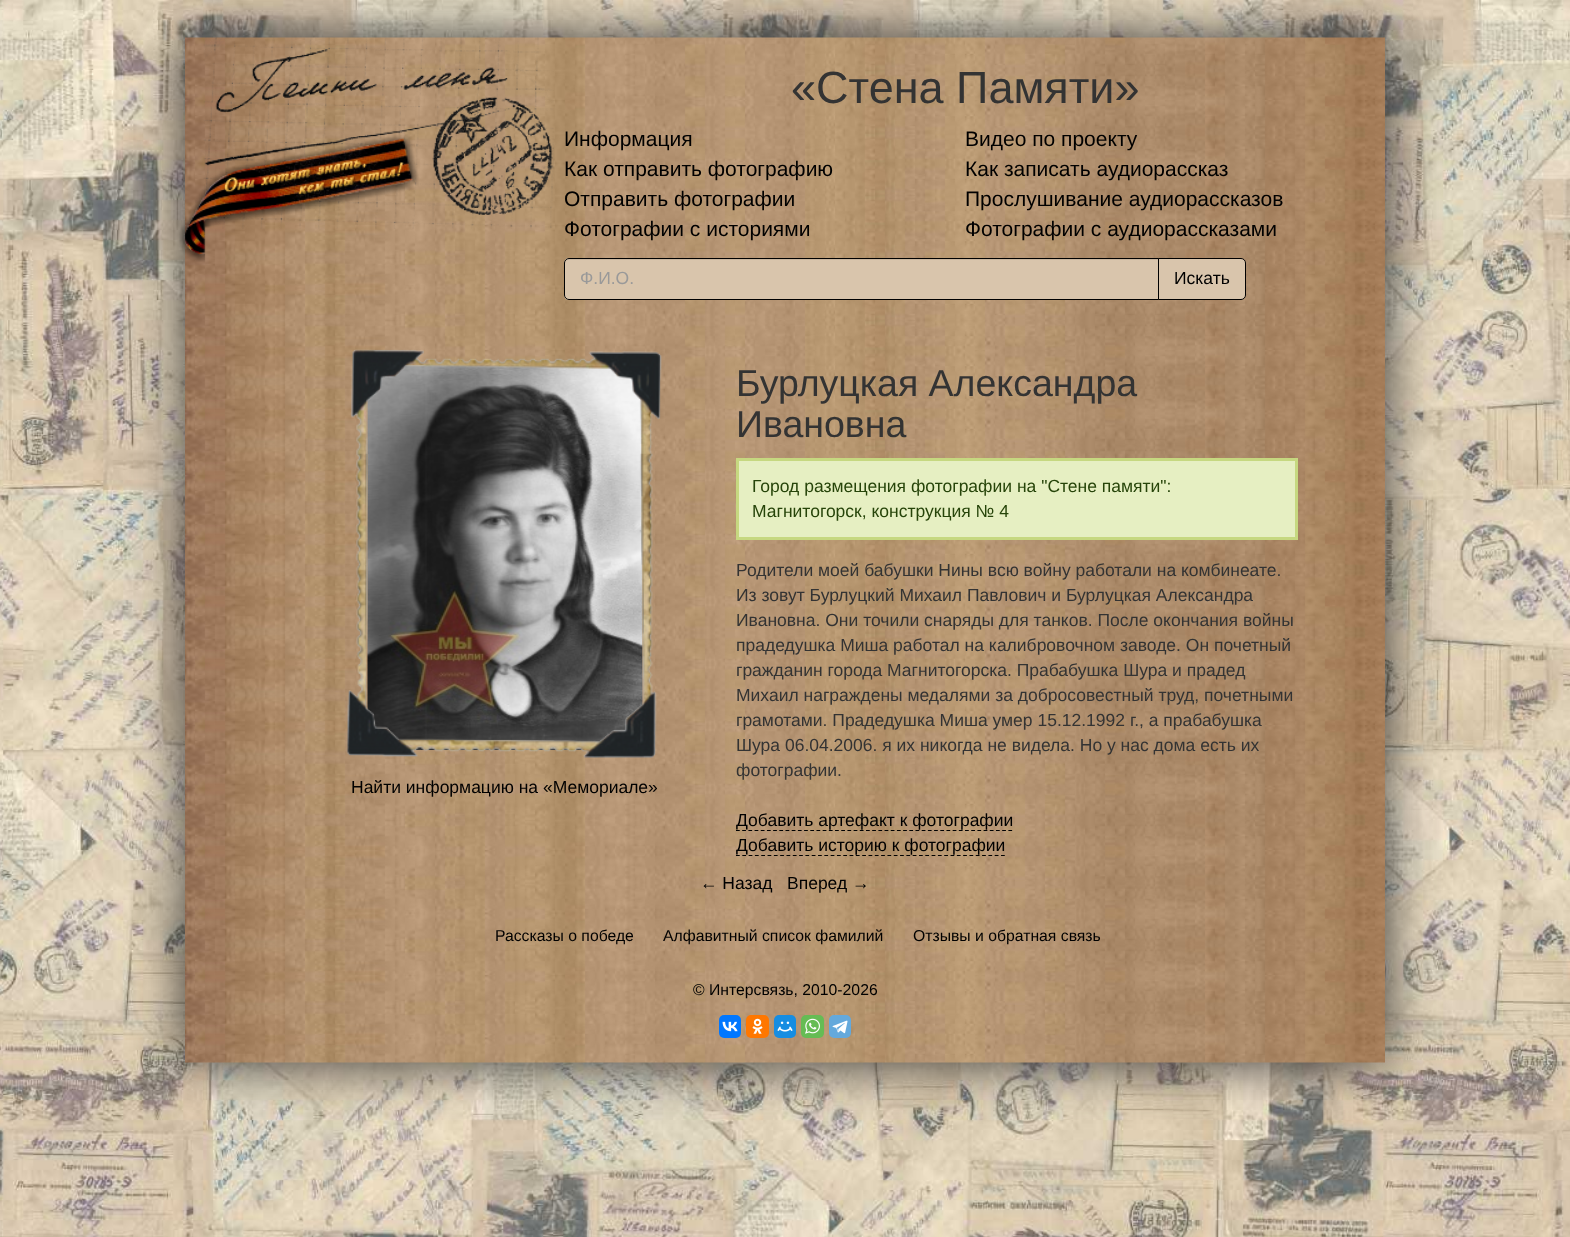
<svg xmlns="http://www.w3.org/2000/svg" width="1570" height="1237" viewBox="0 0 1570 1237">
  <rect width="100%" height="100%" fill="rgb(255,255,255)"/>
  <image x="0" y="0" width="1570" height="1237" href="pic1.png"/>
  <rect x="185" y="38" width="1200" height="1025" fill="rgb(51,51,51)" filter="blur(27.5px)"/>
  <image x="185" y="37" width="1200" height="1026" href="pic2.png"/>
  <image x="203" y="37" width="351" height="192" href="pic3.png"/>
  <image x="179" y="134" width="240" height="128" href="pic4.png"/>
  <text x="791" y="103" font-family="Liberation Sans" font-size="45" fill="rgb(51,51,51)">«Стена Памяти»</text>
  <g font-family="Liberation Sans" font-size="21" fill="rgb(0,0,0)">
    <text x="564" y="146">Информация</text>
    <text x="965" y="146">Видео по проекту</text>
    <text x="564" y="176">Как отправить фотографию</text>
    <text x="965" y="176">Как записать аудиорассказ</text>
    <text x="564" y="206">Отправить фотографии</text>
    <text x="965" y="206">Прослушивание аудиорассказов</text>
    <text x="564" y="236">Фотографии с историями</text>
    <text x="965" y="236">Фотографии с аудиорассказами</text>
  </g>
  <path d="M569 258H1159V300H569C566 300 564 298 564 295V263C564 260 566 258 569 258Z" fill="rgb(217,197,172)"/>
  <path d="M569 260H1158V259H569C566 259 565 261 565 264C565 262 567 260 569 260Z" fill="rgb(201,182,159)"/>
  <path d="M569 258.5H1158.5V299.5H569C566.5 299.5 564.5 297.5 564.5 295V263C564.5 260.5 566.5 258.5 569 258.5Z" fill="none" stroke="rgb(0,0,0)"/>
  <text x="580" y="284" font-family="Liberation Sans" font-size="17.5" fill="rgb(153,153,153)">Ф.И.О.</text>
  <path d="M1158.5 258.5H1241C1243.5 258.5 1245.5 260.5 1245.5 263V295C1245.5 297.5 1243.5 299.5 1241 299.5H1158.5Z" fill="rgb(217,197,172)" stroke="rgb(0,0,0)"/>
  <text x="1174" y="284" font-family="Liberation Sans" font-size="17.5" fill="rgb(0,0,0)">Искать</text>
  <image x="367" y="362" width="276" height="388" href="pic6.png"/>
  <image x="346" y="349" width="316" height="409" href="pic5.png"/>
  <text x="351" y="793" font-family="Liberation Sans" font-size="17.5" fill="rgb(0,0,0)">Найти информацию на «Мемориале»</text>
  <g font-family="Liberation Sans" font-size="37.5" fill="rgb(51,51,51)">
    <text>
      <tspan x="736" y="396">Бурлуцкая Александра</tspan>
      <tspan x="736" y="437">Ивановна</tspan>
    </text>
  </g>
  <rect x="737.5" y="459.5" width="559" height="79" fill="rgb(230,239,194)" stroke="rgb(198,216,128)" stroke-width="3"/>
  <g font-family="Liberation Sans" font-size="17.5" fill="rgb(38,68,9)">
    <text>
      <tspan x="752" y="492">Город размещения фотографии на "Стене памяти":</tspan>
      <tspan x="752" y="517">Магнитогорск, конструкция № 4</tspan>
    </text>
  </g>
  <g font-family="Liberation Sans" font-size="17.5" fill="rgb(51,51,51)">
    <text>
      <tspan x="736" y="576">Родители моей бабушки Нины всю войну работали на комбинеате.</tspan>
      <tspan x="736" y="601">Из зовут Бурлуцкий Михаил Павлович и Бурлуцкая Александра</tspan>
      <tspan x="736" y="626">Ивановна. Они точили снаряды для танков. После окончания войны</tspan>
      <tspan x="736" y="651">прадедушка Миша работал на калибровочном заводе. Он почетный</tspan>
      <tspan x="736" y="676">гражданин города Магнитогорска. Прабабушка Шура и прадед</tspan>
      <tspan x="736" y="701">Михаил награждены медалями за добросовестный труд, почетными</tspan>
      <tspan x="736" y="726">грамотами. Прадедушка Миша умер 15.12.1992 г., а прабабушка</tspan>
      <tspan x="736" y="751">Шура 06.04.2006. я их никогда не видела. Но у нас дома есть их</tspan>
      <tspan x="736" y="776">фотографии.</tspan>
    </text>
  </g>
  <path d="M736 830.5H1012.5" fill="none" stroke="rgb(0,0,0)" stroke-width="1.2" stroke-dasharray="3.75 2.44"/>
  <text x="736" y="826" font-family="Liberation Sans" font-size="17.5" fill="rgb(0,0,0)">Добавить артефакт к фотографии</text>
  <path d="M736 855.5H1005" fill="none" stroke="rgb(0,0,0)" stroke-width="1.2" stroke-dasharray="3.75 2.56"/>
  <g font-family="Liberation Sans" font-size="17.5" fill="rgb(0,0,0)">
    <text x="736" y="851">Добавить историю к фотографии</text>
    <text x="700" y="889">← Назад</text>
    <text x="787" y="889">Вперед →</text>
  </g>
  <g font-family="Liberation Sans" font-size="15.75" fill="rgb(0,0,0)">
    <text x="495" y="941">Рассказы о победе</text>
    <text x="663" y="941">Алфавитный список фамилий</text>
    <text x="913" y="941">Отзывы и обратная связь</text>
    <text x="693" y="995">© Интерсвязь, 2010-2026</text>
  </g>
  <rect x="719" y="1015" width="22" height="23" rx="5" fill="rgb(0,119,255)"/>
  <image x="722" y="1021" width="16" height="11" href="pic7.png"/>
  <rect x="746" y="1015" width="23" height="23" rx="5" fill="rgb(255,119,0)"/>
  <image x="752" y="1018" width="11" height="16" href="pic8.png"/>
  <rect x="774" y="1015" width="22" height="23" rx="5" fill="rgb(22,141,226)"/>
  <image x="777" y="1021" width="16" height="11" href="pic9.png"/>
  <rect x="801" y="1015" width="23" height="23" rx="5" fill="rgb(101,188,84)"/>
  <image x="805" y="1018" width="15" height="16" href="pic10.png"/>
  <rect x="829" y="1015" width="22" height="23" rx="5" fill="rgb(100,169,220)"/>
  <image x="832" y="1020" width="16" height="14" href="pic11.png"/>
</svg>
